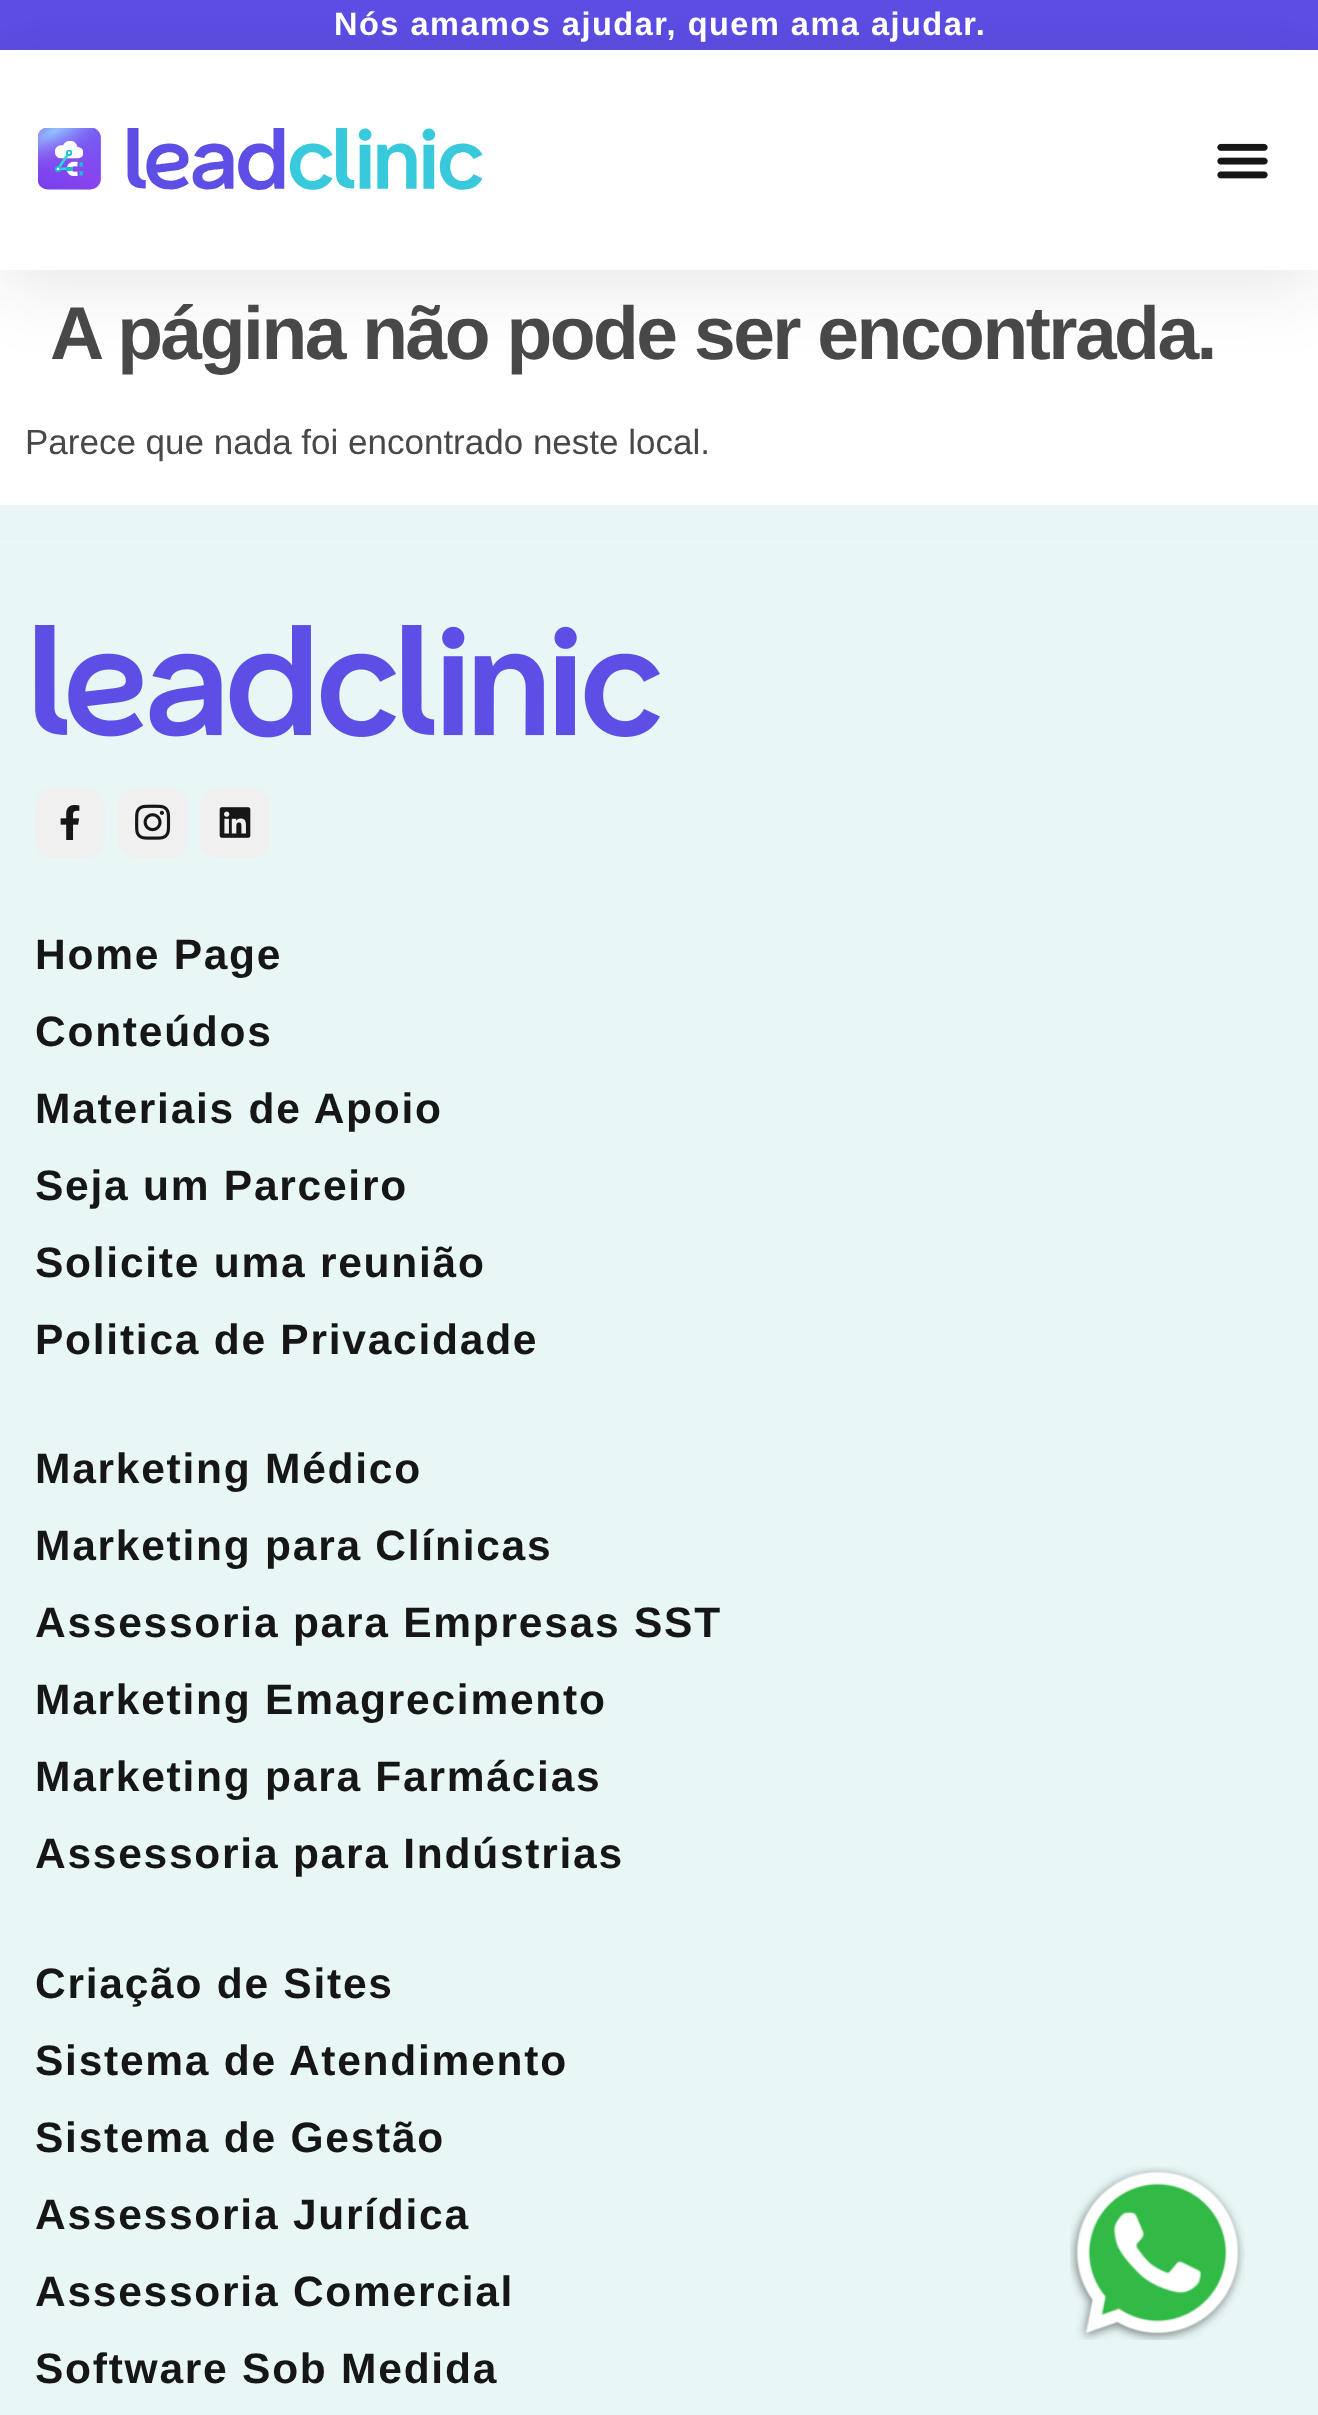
<svg xmlns="http://www.w3.org/2000/svg" width="1318" height="2415" viewBox="0 0 1318 2415">
  <defs>
    <clipPath id="clip1"><path d="M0 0H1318V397H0ZM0 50H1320V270H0Z" clip-rule="evenodd"/></clipPath>
  </defs>
  <rect width="100%" height="100%" fill="rgb(255,255,255)"/>
  <rect x="0" y="0" width="1318" height="50" fill="rgb(93,78,229)"/>
  <g clip-path="url(#clip1)">
    <rect x="0" y="63" width="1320" height="220" fill="rgba(0,0,0,0.1)" filter="blur(37.5px)"/>
  </g>
  <image x="38" y="128" width="445" height="62" href="pic1.png"/>
  <image x="1217" y="143" width="51" height="36" href="pic2.png"/>
  <text x="334" y="35" font-family="Liberation Sans" font-size="32.5" font-weight="bold" letter-spacing="1.5" fill="rgb(255,255,255)">Nós amamos ajudar, quem ama ajudar.</text>
  <text x="50" y="359" font-family="Liberation Sans" font-size="75" font-weight="bold" letter-spacing="-2.5" fill="rgb(72,72,72)">A página não pode ser encontrada.</text>
  <text x="25" y="454" font-family="Liberation Sans" font-size="35" fill="rgb(72,72,72)">Parece que nada foi encontrado neste local.</text>
  <rect x="0" y="505" width="1318" height="1910" fill="rgb(232,246,246)"/>
  <rect x="0" y="540" width="1318" height="3" fill="rgb(236,248,248)"/>
  <image x="35" y="625" width="625" height="113" href="pic3.png"/>
  <rect x="35" y="788" width="70" height="70" rx="18" fill="rgb(240,240,240)"/>
  <image x="60" y="805" width="20" height="35" href="pic4.png"/>
  <rect x="118" y="788" width="70" height="70" rx="18" fill="rgb(240,240,240)"/>
  <image x="135" y="804" width="36" height="36" href="pic5.png"/>
  <rect x="200" y="788" width="70" height="70" rx="18" fill="rgb(240,240,240)"/>
  <image x="219" y="807" width="32" height="31" href="pic6.png"/>
  <g font-family="Liberation Sans" font-size="42.5" font-weight="bold" letter-spacing="1.75" fill="rgb(22,22,22)">
    <text>
      <tspan x="35" y="969">Home Page</tspan>
      <tspan x="35" y="1046">Conteúdos</tspan>
      <tspan x="35" y="1123">Materiais de Apoio</tspan>
      <tspan x="35" y="1200">Seja um Parceiro</tspan>
      <tspan x="35" y="1277">Solicite uma reunião</tspan>
      <tspan x="35" y="1354">Politica de Privacidade</tspan>
    </text>
    <text>
      <tspan x="35" y="1483">Marketing Médico</tspan>
      <tspan x="35" y="1560">Marketing para Clínicas</tspan>
      <tspan x="35" y="1637">Assessoria para Empresas SST</tspan>
      <tspan x="35" y="1714">Marketing Emagrecimento</tspan>
      <tspan x="35" y="1791">Marketing para Farmácias</tspan>
      <tspan x="35" y="1868">Assessoria para Indústrias</tspan>
    </text>
    <text>
      <tspan x="35" y="1998">Criação de Sites</tspan>
      <tspan x="35" y="2075">Sistema de Atendimento</tspan>
      <tspan x="35" y="2152">Sistema de Gestão</tspan>
      <tspan x="35" y="2229">Assessoria Jurídica</tspan>
      <tspan x="35" y="2306">Assessoria Comercial</tspan>
      <tspan x="35" y="2383">Software Sob Medida</tspan>
    </text>
  </g>
  <image x="1070" y="2166" width="175" height="174" href="pic7.png"/>
</svg>
